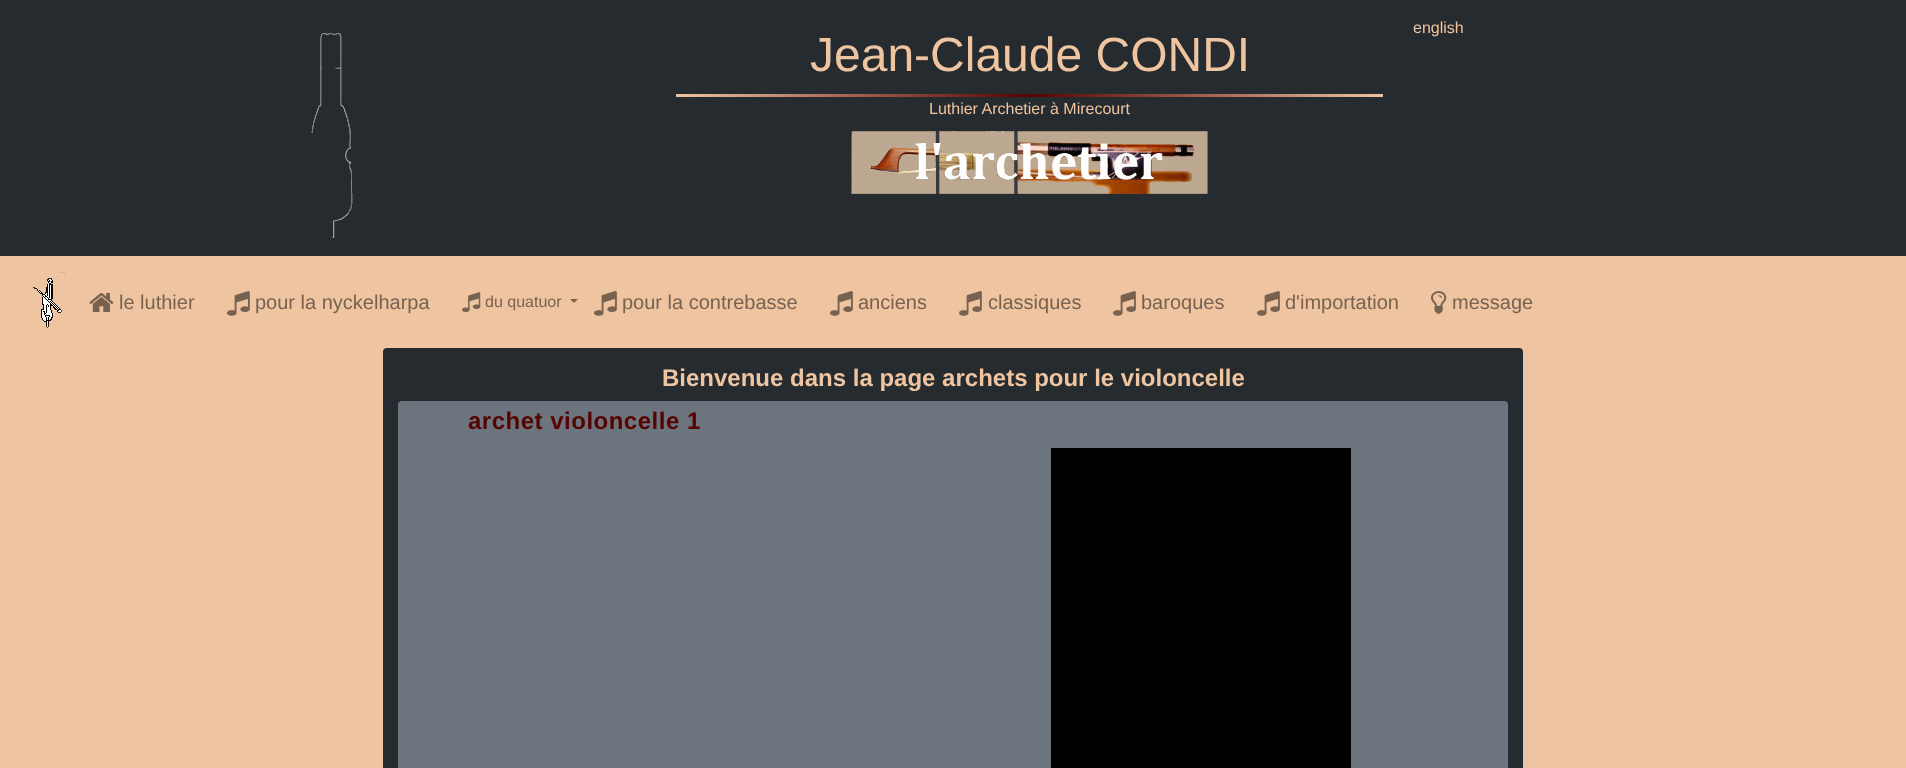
<svg xmlns="http://www.w3.org/2000/svg" width="1906" height="768" viewBox="0 0 1906 768">
  <defs>
    <linearGradient id="g1" gradientUnits="userSpaceOnUse" x1="676" y1="96" x2="1383" y2="95"><stop offset="0" stop-color="rgb(239,196,160)"/><stop offset="0.5" stop-color="rgb(87,0,0)"/><stop offset="1" stop-color="rgb(239,196,160)"/></linearGradient>
  </defs>
  <rect width="100%" height="100%" fill="rgb(239,196,160)"/>
  <rect x="0" y="0" width="1906" height="256" fill="rgb(38,43,47)"/>
  <text x="1413" y="33" font-family="Liberation Sans" font-size="16" fill="rgb(239,196,160)">english</text>
  <image x="311" y="33" width="42" height="205" href="pic1.png"/>
  <text x="810" y="71" font-family="Liberation Sans" font-size="48" fill="rgb(239,196,160)">Jean-Claude CONDI</text>
  <rect x="676" y="94" width="707" height="3" fill="url(#g1)"/>
  <text x="929" y="114" font-family="Liberation Sans" font-size="16" fill="rgb(239,196,160)">Luthier Archetier à Mirecourt</text>
  <image x="851" y="131" width="357" height="63" href="pic2.png"/>
  <image x="33" y="271" width="32" height="61" href="pic3.png"/>
  <image x="89" y="292" width="25" height="20" href="pic4.png"/>
  <text x="119" y="309" font-family="Liberation Sans" font-size="20" fill="rgb(120,98,80)">le luthier</text>
  <image x="227" y="291" width="23" height="25" href="pic5.png"/>
  <text x="255" y="309" font-family="Liberation Sans" font-size="20" fill="rgb(120,98,80)">pour la nyckelharpa</text>
  <image x="462" y="292" width="19" height="20" href="pic6.png"/>
  <text x="485" y="307" font-family="Liberation Sans" font-size="16" fill="rgb(120,98,80)">du quatuor</text>
  <path d="M570 299H578L574 303Z" fill="rgb(120,98,80)"/>
  <image x="594" y="291" width="23" height="25" href="pic5.png"/>
  <text x="622" y="309" font-family="Liberation Sans" font-size="20" fill="rgb(120,98,80)">pour la contrebasse</text>
  <image x="830" y="291" width="23" height="25" href="pic5.png"/>
  <text x="858" y="309" font-family="Liberation Sans" font-size="20" fill="rgb(120,98,80)">anciens</text>
  <image x="959" y="291" width="23" height="25" href="pic5.png"/>
  <text x="988" y="309" font-family="Liberation Sans" font-size="20" fill="rgb(120,98,80)">classiques</text>
  <image x="1113" y="291" width="23" height="25" href="pic5.png"/>
  <text x="1141" y="309" font-family="Liberation Sans" font-size="20" fill="rgb(120,98,80)">baroques</text>
  <image x="1257" y="291" width="23" height="25" href="pic5.png"/>
  <text x="1285" y="309" font-family="Liberation Sans" font-size="20" fill="rgb(120,98,80)">d'importation</text>
  <image x="1431" y="291" width="16" height="23" href="pic7.png"/>
  <text x="1452" y="309" font-family="Liberation Sans" font-size="20" fill="rgb(120,98,80)">message</text>
  <rect x="383" y="348" width="1140" height="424" rx="4" fill="rgb(38,43,47)"/>
  <text x="662" y="386" font-family="Liberation Sans" font-size="24" font-weight="bold" fill="rgb(239,196,160)">Bienvenue dans la page archets pour le violoncelle</text>
  <rect x="398" y="401" width="1110" height="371" rx="4" fill="rgb(108,117,125)"/>
  <text x="468" y="429" font-family="Liberation Sans" font-size="24" font-weight="bold" letter-spacing="0.5" fill="rgb(87,0,0)">archet violoncelle 1</text>
  <rect x="1051" y="448" width="300" height="320" fill="rgb(0,0,0)"/>
</svg>
